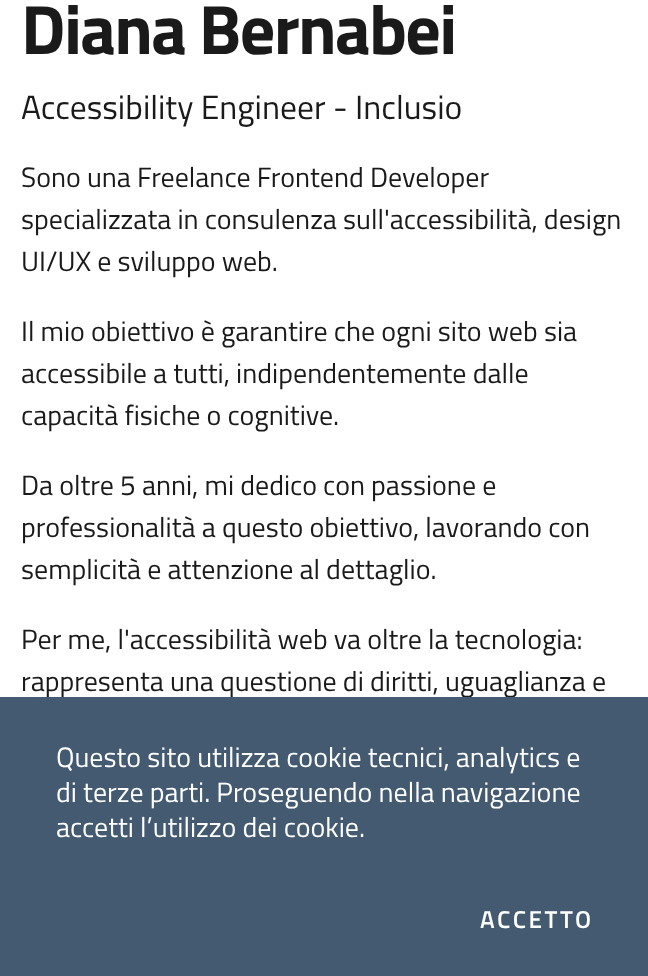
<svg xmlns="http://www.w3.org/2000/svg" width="648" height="976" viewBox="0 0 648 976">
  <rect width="100%" height="100%" fill="rgb(255,255,255)"/>
  <text x="21" y="54" font-family="Titillium Web" font-size="70" font-weight="bold" letter-spacing="-1.75" fill="rgb(26,26,26)">Diana Bernabei</text>
  <text x="21" y="119" font-family="Titillium Web" font-size="33.6" fill="rgb(26,26,26)">Accessibility Engineer - Inclusio</text>
  <g font-family="Titillium Web" font-size="28" fill="rgb(26,26,26)">
    <text>
      <tspan x="21" y="187">Sono una Freelance Frontend Developer</tspan>
      <tspan x="21" y="229">specializzata in consulenza sull'accessibilità, design</tspan>
      <tspan x="21" y="271">UI/UX e sviluppo web.</tspan>
    </text>
    <text>
      <tspan x="21" y="341">Il mio obiettivo è garantire che ogni sito web sia</tspan>
      <tspan x="21" y="383">accessibile a tutti, indipendentemente dalle</tspan>
      <tspan x="21" y="425">capacità fisiche o cognitive.</tspan>
    </text>
    <text>
      <tspan x="21" y="495">Da oltre 5 anni, mi dedico con passione e</tspan>
      <tspan x="21" y="537">professionalità a questo obiettivo, lavorando con</tspan>
      <tspan x="21" y="579">semplicità e attenzione al dettaglio.</tspan>
    </text>
    <text>
      <tspan x="21" y="649">Per me, l'accessibilità web va oltre la tecnologia:</tspan>
      <tspan x="21" y="691">rappresenta una questione di diritti, uguaglianza e</tspan>
    </text>
  </g>
  <rect x="0" y="697" width="648" height="279" fill="rgb(67,90,112)"/>
  <g font-family="Titillium Web" font-size="28" fill="rgb(255,255,255)">
    <text>
      <tspan x="56" y="767">Questo sito utilizza cookie tecnici, analytics e</tspan>
      <tspan x="56" y="802">di terze parti. Proseguendo nella navigazione</tspan>
      <tspan x="56" y="837">accetti l’utilizzo dei cookie.</tspan>
    </text>
  </g>
  <text x="480" y="928" font-family="Titillium Web" font-size="24.5" font-weight="600" letter-spacing="2.5" fill="rgb(255,255,255)">ACCETTO</text>
</svg>
